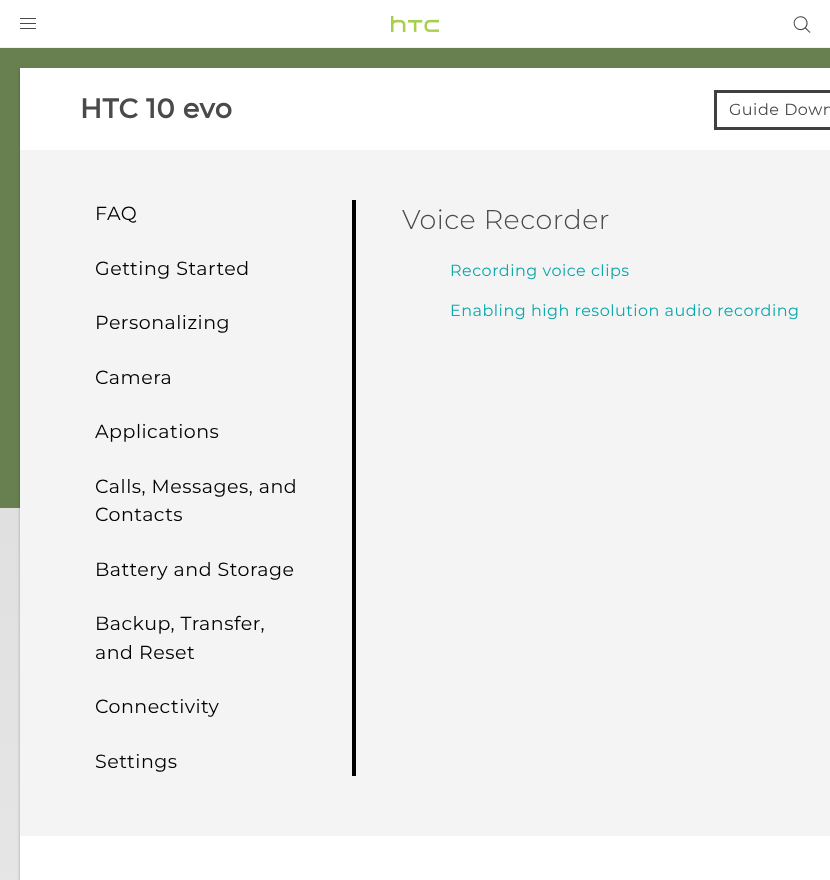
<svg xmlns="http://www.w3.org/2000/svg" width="830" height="880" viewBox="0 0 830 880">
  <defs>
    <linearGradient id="g1" gradientUnits="userSpaceOnUse" x1="415" y1="48" x2="415" y2="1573"><stop offset="0" stop-color="rgb(218,218,218)"/><stop offset="0.88" stop-color="rgb(236,236,236)"/><stop offset="1" stop-color="rgb(236,236,236)"/></linearGradient>
  </defs>
  <rect width="100%" height="100%" fill="rgb(255,255,255)"/>
  <rect x="0" y="47" width="830" height="1" fill="rgb(239,239,239)"/>
  <rect x="20" y="23" width="16" height="1" fill="rgb(74,74,74)"/>
  <rect x="20" y="18" width="16" height="1" fill="rgb(74,74,74)"/>
  <rect x="20" y="28" width="16" height="1" fill="rgb(74,74,74)"/>
  <image x="391" y="16" width="48" height="16" href="pic1.png"/>
  <image x="793" y="16" width="18" height="17" href="pic2.png"/>
  <rect x="0" y="508" width="20" height="372" fill="url(#g1)"/>
  <rect x="0" y="48" width="830" height="460" fill="rgb(104,128,79)"/>
  <rect x="20" y="70" width="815" height="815" fill="rgba(0,0,0,0.3)" filter="blur(1.5px)"/>
  <rect x="20" y="68" width="810" height="812" fill="rgb(255,255,255)"/>
  <text x="80" y="118" font-family="Montserrat" font-size="27" font-weight="bold" letter-spacing="0.5" fill="rgb(74,74,74)">HTC 10 evo</text>
  <rect x="715.5" y="91.5" width="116" height="37" fill="none" stroke="rgb(64,64,64)" stroke-width="3"/>
  <text x="729" y="115" font-family="Montserrat" font-size="16" letter-spacing="0.5" fill="rgb(74,74,74)">Guide Down</text>
  <rect x="20" y="150" width="810" height="686" fill="rgb(244,244,244)"/>
  <g font-family="Montserrat" font-size="19" letter-spacing="0.5" fill="rgb(0,0,0)">
    <text x="95" y="220">FAQ</text>
    <text x="95" y="275">Getting Started</text>
    <text x="95" y="329">Personalizing</text>
    <text x="95" y="384">Camera</text>
    <text x="95" y="438">Applications</text>
    <text>
      <tspan x="95" y="493">Calls, Messages, and</tspan>
      <tspan x="95" y="521">Contacts</tspan>
    </text>
    <text x="95" y="576">Battery and Storage</text>
    <text>
      <tspan x="95" y="630">Backup, Transfer,</tspan>
      <tspan x="95" y="659">and Reset</tspan>
    </text>
    <text x="95" y="713">Connectivity</text>
    <text x="95" y="768">Settings</text>
  </g>
  <rect x="352" y="200" width="4" height="576" fill="rgb(0,0,0)"/>
  <text x="402" y="229" font-family="Montserrat" font-size="27" font-weight="300" letter-spacing="0.5" fill="rgb(74,74,74)">Voice Recorder</text>
  <g font-family="Montserrat" font-size="16" letter-spacing="0.5" fill="rgb(13,168,171)">
    <text x="450" y="276">Recording voice clips</text>
    <text x="450" y="316">Enabling high resolution audio recording</text>
  </g>
</svg>
